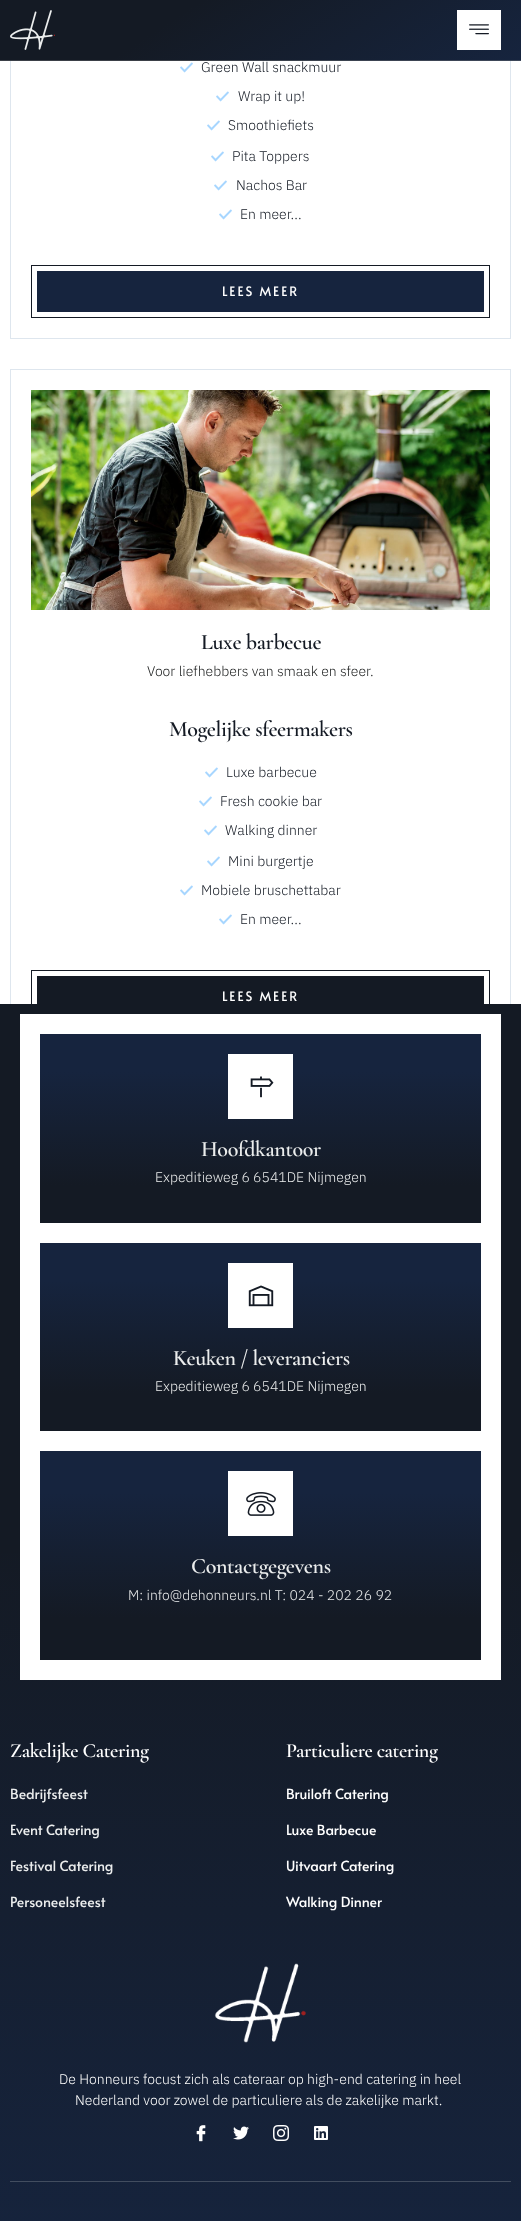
<svg xmlns="http://www.w3.org/2000/svg" width="521" height="2221" viewBox="0 0 521 2221">
  <defs>
    <linearGradient id="g1" gradientUnits="userSpaceOnUse" x1="170" y1="-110" x2="351" y2="170"><stop offset="0.33" stop-color="rgb(20,26,36)"/><stop offset="1" stop-color="rgb(22,36,62)"/></linearGradient>
    <linearGradient id="g2" gradientUnits="userSpaceOnUse" x1="170" y1="-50" x2="351" y2="230"><stop offset="0.33" stop-color="rgb(20,26,36)"/><stop offset="1" stop-color="rgb(22,36,62)"/></linearGradient>
    <linearGradient id="g3" gradientUnits="userSpaceOnUse" x1="260" y1="1004" x2="261" y2="1690"><stop offset="0.8" stop-color="rgb(20,26,36)"/><stop offset="1" stop-color="rgb(20,26,36)" stop-opacity="0"/></linearGradient>
    <linearGradient id="g4" gradientUnits="userSpaceOnUse" x1="260" y1="1540" x2="261" y2="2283"><stop offset="0" stop-color="rgb(20,26,36)"/><stop offset="1" stop-color="rgb(22,36,62)"/></linearGradient>
    <linearGradient id="g5" gradientUnits="userSpaceOnUse" x1="261" y1="1034" x2="261" y2="1223"><stop offset="0.2" stop-color="rgb(22,36,62)"/><stop offset="0.8" stop-color="rgb(20,26,36)"/></linearGradient>
    <linearGradient id="g6" gradientUnits="userSpaceOnUse" x1="261" y1="1243" x2="261" y2="1431"><stop offset="0.2" stop-color="rgb(22,36,62)"/><stop offset="0.8" stop-color="rgb(20,26,36)"/></linearGradient>
    <linearGradient id="g7" gradientUnits="userSpaceOnUse" x1="261" y1="1451" x2="261" y2="1660"><stop offset="0.2" stop-color="rgb(22,36,62)"/><stop offset="0.8" stop-color="rgb(20,26,36)"/></linearGradient>
  </defs>
  <rect width="100%" height="100%" fill="rgb(255,255,255)"/>
  <rect x="10.5" y="-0.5" width="500" height="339" fill="none" stroke="rgb(222,230,238)"/>
  <rect x="0" y="0" width="521" height="60" fill="url(#g1)"/>
  <rect x="0" y="60" width="521" height="1" fill="url(#g2)"/>
  <rect x="0" y="60" width="521" height="1" fill="rgba(255,255,255,0.17)"/>
  <image x="10" y="10" width="45" height="40" href="pic1.png"/>
  <rect x="457" y="10" width="44" height="40" fill="rgb(255,255,255)"/>
  <image x="469" y="24" width="20" height="11" href="pic2.png"/>
  <image x="180" y="62" width="13" height="11" href="pic3.png"/>
  <text x="201" y="72" font-family="IBM Plex Sans" font-size="14" font-weight="300" fill="rgb(20,26,36)">Green Wall snackmuur</text>
  <image x="216" y="91" width="13" height="11" href="pic3.png"/>
  <text x="238" y="101" font-family="IBM Plex Sans" font-size="14" font-weight="300" fill="rgb(20,26,36)">Wrap it up!</text>
  <image x="207" y="120" width="13" height="11" href="pic3.png"/>
  <text x="228" y="130" font-family="IBM Plex Sans" font-size="14" font-weight="300" fill="rgb(20,26,36)">Smoothiefiets</text>
  <image x="211" y="151" width="13" height="11" href="pic3.png"/>
  <text x="232" y="161" font-family="IBM Plex Sans" font-size="14" font-weight="300" fill="rgb(20,26,36)">Pita Toppers</text>
  <image x="214" y="180" width="13" height="11" href="pic3.png"/>
  <text x="236" y="190" font-family="IBM Plex Sans" font-size="14" font-weight="300" fill="rgb(20,26,36)">Nachos Bar</text>
  <image x="219" y="209" width="13" height="11" href="pic3.png"/>
  <text x="240" y="219" font-family="IBM Plex Sans" font-size="14" font-weight="300" fill="rgb(20,26,36)">En meer...</text>
  <rect x="31.5" y="265.5" width="458" height="52" fill="none" stroke="rgb(20,26,36)"/>
  <rect x="37" y="271" width="447" height="41" fill="rgb(22,36,62)"/>
  <text x="222" y="296" font-family="Alata" font-size="13" letter-spacing="2" fill="rgb(255,255,255)">LEES MEER</text>
  <rect x="10.5" y="369.5" width="500" height="674" fill="none" stroke="rgb(222,230,238)"/>
  <image x="31" y="390" width="459" height="220" href="pic4.png"/>
  <text x="201" y="649" font-family="Cormorant Garamond" font-size="22" font-weight="600" letter-spacing="-0.4" fill="rgb(20,26,36)">Luxe barbecue</text>
  <text x="147" y="676" font-family="IBM Plex Sans" font-size="14" font-weight="300" fill="rgb(32,34,34)">Voor liefhebbers van smaak en sfeer.</text>
  <text x="169" y="736" font-family="Cormorant Garamond" font-size="22" font-weight="600" letter-spacing="-0.4" fill="rgb(20,26,36)">Mogelijke sfeermakers</text>
  <image x="205" y="767" width="13" height="11" href="pic3.png"/>
  <text x="226" y="777" font-family="IBM Plex Sans" font-size="14" font-weight="300" fill="rgb(20,26,36)">Luxe barbecue</text>
  <image x="199" y="796" width="13" height="11" href="pic3.png"/>
  <text x="220" y="806" font-family="IBM Plex Sans" font-size="14" font-weight="300" fill="rgb(20,26,36)">Fresh cookie bar</text>
  <image x="204" y="825" width="13" height="11" href="pic3.png"/>
  <text x="225" y="835" font-family="IBM Plex Sans" font-size="14" font-weight="300" fill="rgb(20,26,36)">Walking dinner</text>
  <image x="207" y="856" width="13" height="11" href="pic3.png"/>
  <text x="228" y="866" font-family="IBM Plex Sans" font-size="14" font-weight="300" fill="rgb(20,26,36)">Mini burgertje</text>
  <image x="180" y="885" width="13" height="11" href="pic3.png"/>
  <text x="201" y="895" font-family="IBM Plex Sans" font-size="14" font-weight="300" fill="rgb(20,26,36)">Mobiele bruschettabar</text>
  <image x="219" y="914" width="13" height="11" href="pic3.png"/>
  <text x="240" y="924" font-family="IBM Plex Sans" font-size="14" font-weight="300" fill="rgb(20,26,36)">En meer...</text>
  <rect x="31.5" y="970.5" width="458" height="52" fill="none" stroke="rgb(20,26,36)"/>
  <rect x="37" y="976" width="447" height="28" fill="rgb(20,26,36)"/>
  <text x="222" y="1001" font-family="Alata" font-size="13" letter-spacing="2" fill="rgb(255,255,255)">LEES MEER</text>
  <rect x="0" y="1004" width="521" height="549" fill="url(#g3)"/>
  <rect x="0" y="1553" width="521" height="668" fill="url(#g4)"/>
  <rect x="20" y="1014" width="481" height="666" fill="rgb(255,255,255)"/>
  <rect x="40" y="1034" width="441" height="189" fill="url(#g5)"/>
  <rect x="228" y="1054" width="65" height="65" fill="rgb(255,255,255)"/>
  <image x="250" y="1076" width="24" height="22" href="pic5.png"/>
  <text x="201" y="1156" font-family="Cormorant Garamond" font-size="22" font-weight="600" letter-spacing="-0.4" fill="rgb(235,237,237)">Hoofdkantoor</text>
  <text x="155" y="1182" font-family="IBM Plex Sans" font-size="14" font-weight="300" fill="rgb(235,237,237)">Expeditieweg 6 6541DE Nijmegen</text>
  <rect x="40" y="1243" width="441" height="188" fill="url(#g6)"/>
  <rect x="228" y="1263" width="65" height="65" fill="rgb(255,255,255)"/>
  <image x="248" y="1285" width="26" height="22" href="pic6.png"/>
  <text x="173" y="1365" font-family="Cormorant Garamond" font-size="22" font-weight="600" letter-spacing="-0.4" fill="rgb(235,237,237)">Keuken / leveranciers</text>
  <text x="155" y="1391" font-family="IBM Plex Sans" font-size="14" font-weight="300" fill="rgb(235,237,237)">Expeditieweg 6 6541DE Nijmegen</text>
  <rect x="40" y="1451" width="441" height="209" fill="url(#g7)"/>
  <rect x="228" y="1471" width="65" height="65" fill="rgb(255,255,255)"/>
  <image x="246" y="1492" width="30" height="24" href="pic7.png"/>
  <text x="191" y="1573" font-family="Cormorant Garamond" font-size="22" font-weight="600" letter-spacing="-0.4" fill="rgb(235,237,237)">Contactgegevens</text>
  <text x="128" y="1600" font-family="IBM Plex Sans" font-size="14" font-weight="300" fill="rgb(235,237,237)">M: info@dehonneurs.nl T: 024 - 202 26 92</text>
  <text x="10" y="1757" font-family="Cormorant Garamond" font-size="20" font-weight="600" letter-spacing="-0.4" fill="rgb(255,255,255)">Zakelijke Catering</text>
  <g font-family="Alata" font-size="14" fill="rgb(235,237,237)">
    <text x="10" y="1799">Bedrijfsfeest</text>
    <text x="10" y="1835">Event Catering</text>
    <text x="10" y="1871">Festival Catering</text>
    <text x="10" y="1907">Personeelsfeest</text>
  </g>
  <text x="286" y="1757" font-family="Cormorant Garamond" font-size="20" font-weight="600" letter-spacing="-0.4" fill="rgb(255,255,255)">Particuliere catering</text>
  <g font-family="Alata" font-size="14" fill="rgb(255,255,255)">
    <text x="286" y="1799">Bruiloft Catering</text>
    <text x="286" y="1835">Luxe Barbecue</text>
    <text x="286" y="1871">Uitvaart Catering</text>
    <text x="286" y="1907">Walking Dinner</text>
  </g>
  <image x="214" y="1963" width="92" height="80" href="pic8.png"/>
  <g font-family="IBM Plex Sans" font-size="14" font-weight="300" fill="rgb(255,255,255)">
    <text x="59" y="2084">De Honneurs focust zich als cateraar op high-end catering in heel</text>
    <text x="75" y="2105">Nederland voor zowel de particuliere als de zakelijke markt.</text>
  </g>
  <image x="196" y="2125" width="10" height="17" href="pic9.png"/>
  <image x="233" y="2126" width="16" height="14" href="pic10.png"/>
  <image x="273" y="2125" width="17" height="16" href="pic11.png"/>
  <image x="314" y="2126" width="14" height="14" href="pic12.png"/>
  <rect x="10" y="2181" width="501" height="1" fill="rgb(66,77,95)"/>
</svg>
